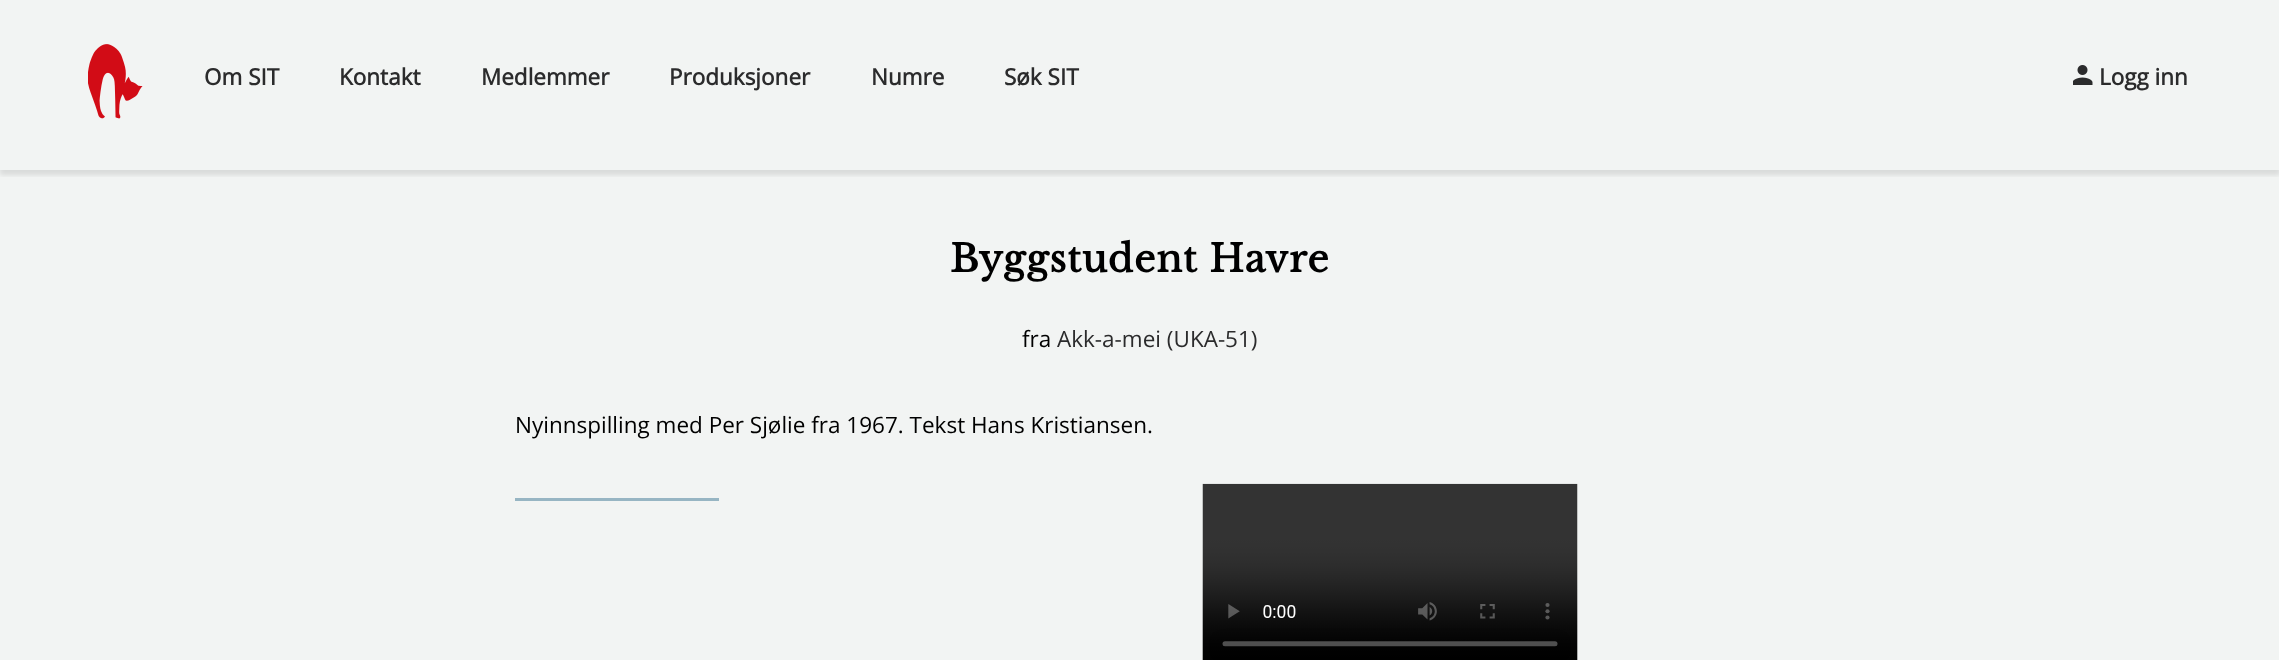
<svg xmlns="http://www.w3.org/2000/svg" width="2279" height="660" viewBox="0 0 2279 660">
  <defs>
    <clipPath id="clip1"><rect x="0" y="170" width="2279" height="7"/></clipPath>
  </defs>
  <rect width="100%" height="100%" fill="rgb(242,244,243)"/>
  <g clip-path="url(#clip1)">
    <rect x="0" y="5" width="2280" height="170" fill="rgba(0,0,0,0.1)" filter="blur(2.5px)"/>
  </g>
  <image x="88" y="44" width="55" height="75" href="pic1.png"/>
  <g font-family="Open Sans" font-size="22.5" font-weight="bold" fill="rgb(43,43,44)">
    <text x="204" y="85">Om SIT</text>
    <text x="339" y="85">Kontakt</text>
    <text x="481" y="85">Medlemmer</text>
    <text x="669" y="85">Produksjoner</text>
    <text x="871" y="85">Numre</text>
    <text x="1004" y="85">Søk SIT</text>
  </g>
  <image x="2073" y="65" width="20" height="20" href="pic2.png"/>
  <text x="2099" y="85" font-family="Open Sans" font-size="22.5" font-weight="bold" fill="rgb(43,43,44)">Logg inn</text>
  <text x="950" y="272" font-family="Libre Baskerville" font-size="37.5" font-weight="bold" letter-spacing="0.75" fill="rgb(0,0,0)">Byggstudent Havre</text>
  <text x="1022" y="347" font-family="Open Sans" font-size="22.5" fill="rgb(0,0,0)">fra</text>
  <text x="1057" y="347" font-family="Open Sans" font-size="22.5" fill="rgb(43,43,44)">Akk-a-mei (UKA-51)</text>
  <text x="515" y="433" font-family="Open Sans" font-size="22.5" fill="rgb(0,0,0)">Nyinnspilling med Per Sjølie fra 1967. Tekst Hans Kristiansen.</text>
  <rect x="515" y="498" width="204" height="3" fill="rgb(151,181,195)"/>
  <image x="1202" y="483" width="376" height="177" href="pic3.png"/>
</svg>
